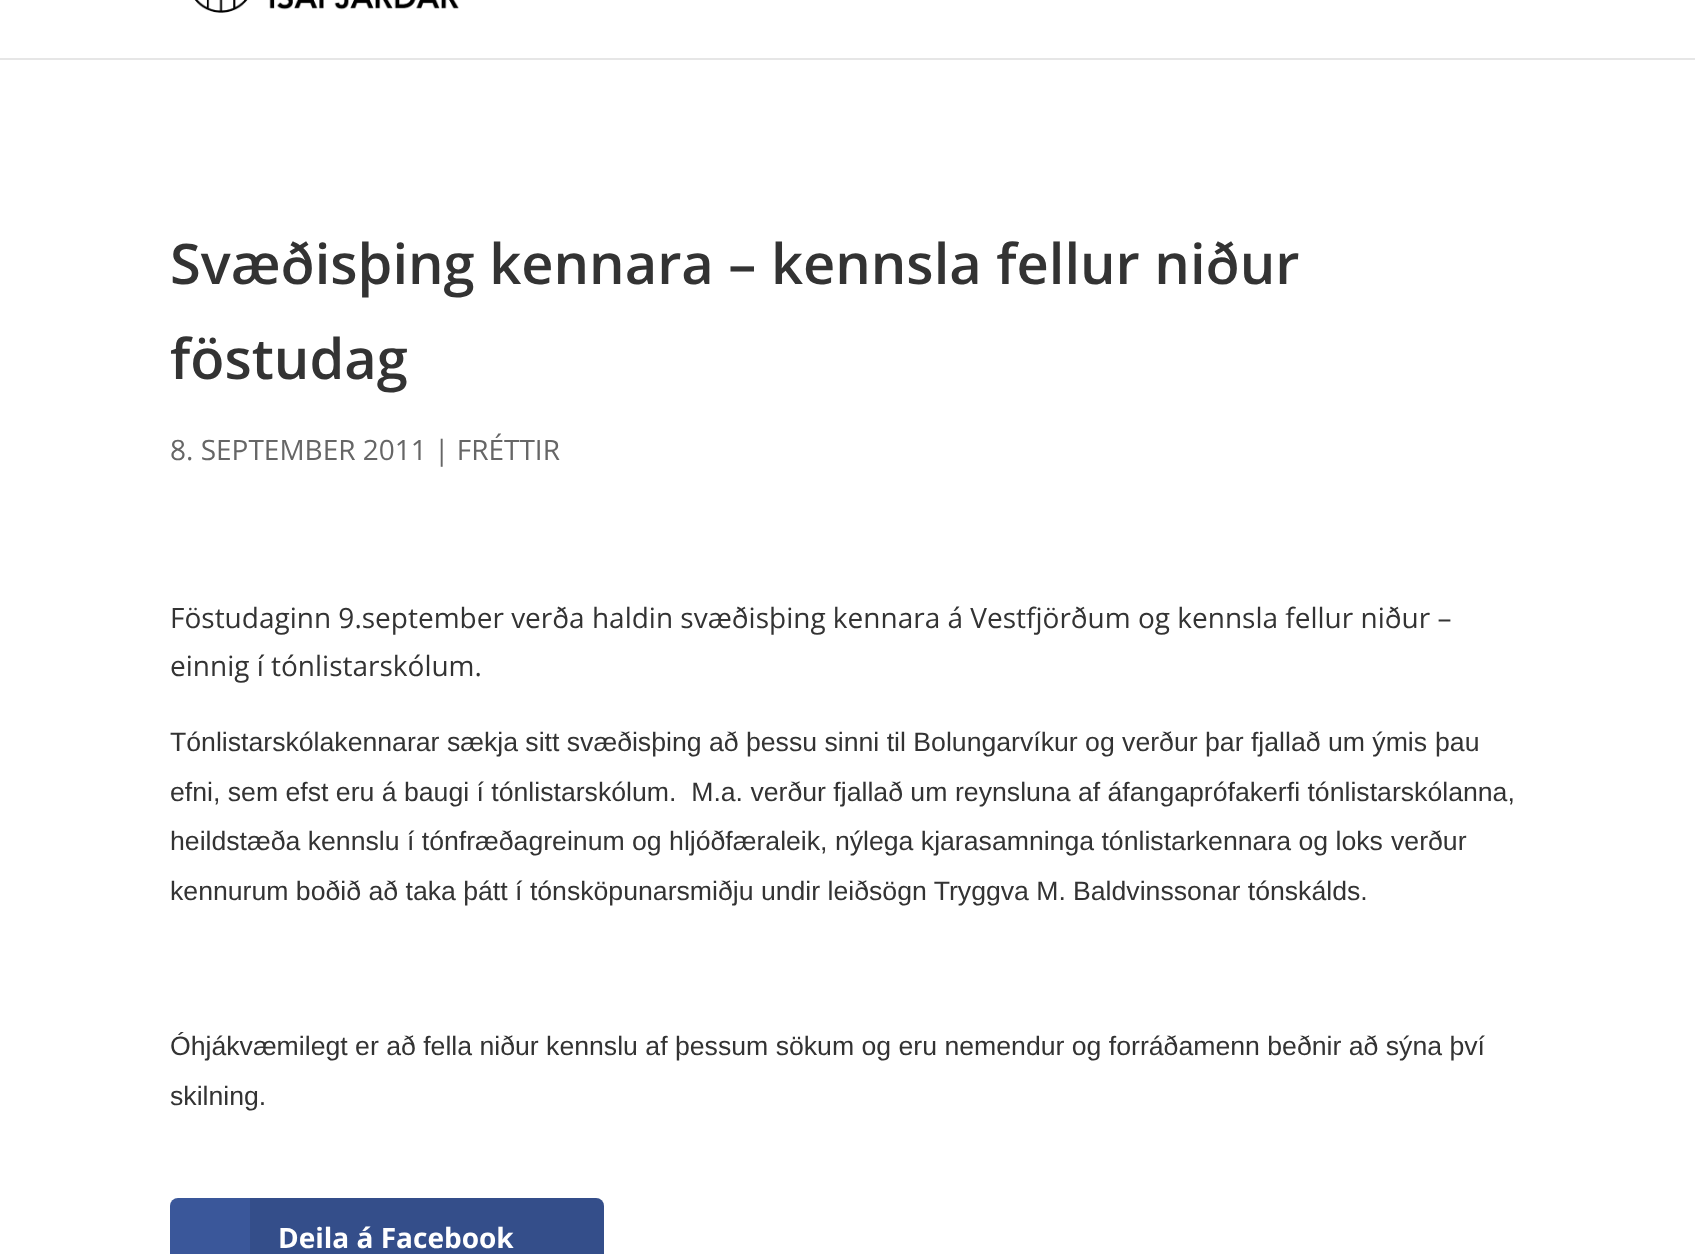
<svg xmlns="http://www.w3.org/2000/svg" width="1695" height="1254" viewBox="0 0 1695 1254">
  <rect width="100%" height="100%" fill="rgb(255,255,255)"/>
  <rect x="0" y="58" width="1695" height="2" fill="rgb(230,230,230)"/>
  <image x="194" y="0" width="265" height="13" href="pic1.png"/>
  <g font-family="Open Sans" font-size="56" font-weight="600" fill="rgb(51,51,51)">
    <text>
      <tspan x="170" y="284">Svæðisþing kennara – kennsla fellur niður</tspan>
      <tspan x="170" y="379">föstudag</tspan>
    </text>
  </g>
  <text x="170" y="460" font-family="Open Sans" font-size="28" fill="rgb(102,102,102)">8. SEPTEMBER 2011 | FRÉTTIR</text>
  <g font-family="Open Sans" font-size="28" fill="rgb(51,51,51)">
    <text>
      <tspan x="170" y="628">Föstudaginn 9.september verða haldin svæðisþing kennara á Vestfjörðum og kennsla fellur niður –</tspan>
      <tspan x="170" y="676">einnig í tónlistarskólum.</tspan>
    </text>
  </g>
  <g font-family="Liberation Sans" font-size="26.65" fill="rgb(51,51,51)">
    <text x="170" y="751">Tónlistarskólakennarar sækja sitt svæðisþing að þessu sinni til Bolungarvíkur og verður þar fjallað um ýmis</text>
    <text x="1435" y="751">þau</text>
    <text x="170" y="801" xml:space="preserve">efni, sem efst eru á baugi í tónlistarskólum.  M.a. verður fjallað um</text>
    <text x="955" y="801">reynsluna af áfangaprófakerfi tónlistarskólanna,</text>
    <text x="170" y="850">heildstæða kennslu í tónfræðagreinum og hljóðfæraleik, nýlega kjarasamninga tónlistarkennara og loks</text>
    <text x="1391" y="850">verður</text>
    <text x="170" y="900">kennurum boðið að taka þátt í tónsköpunarsmiðju undir leiðsögn Tryggva M.</text>
    <text x="1073" y="900">Baldvinssonar tónskálds.</text>
    <text>
      <tspan x="170" y="1055">Óhjákvæmilegt er að fella niður kennslu af þessum sökum og eru nemendur og forráðamenn beðnir að sýna því</tspan>
      <tspan x="170" y="1105">skilning.</tspan>
    </text>
  </g>
  <rect x="170" y="1198" width="434" height="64" rx="8" fill="rgb(58,87,154)"/>
  <path d="M250 1198H596C600.5 1198 604 1201.5 604 1206V1254C604 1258.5 600.5 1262 596 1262H250Z" fill="rgba(0,0,0,0.1)"/>
  <text x="278" y="1248" font-family="Open Sans" font-size="28" font-weight="bold" fill="rgb(255,255,255)">Deila á Facebook</text>
</svg>
